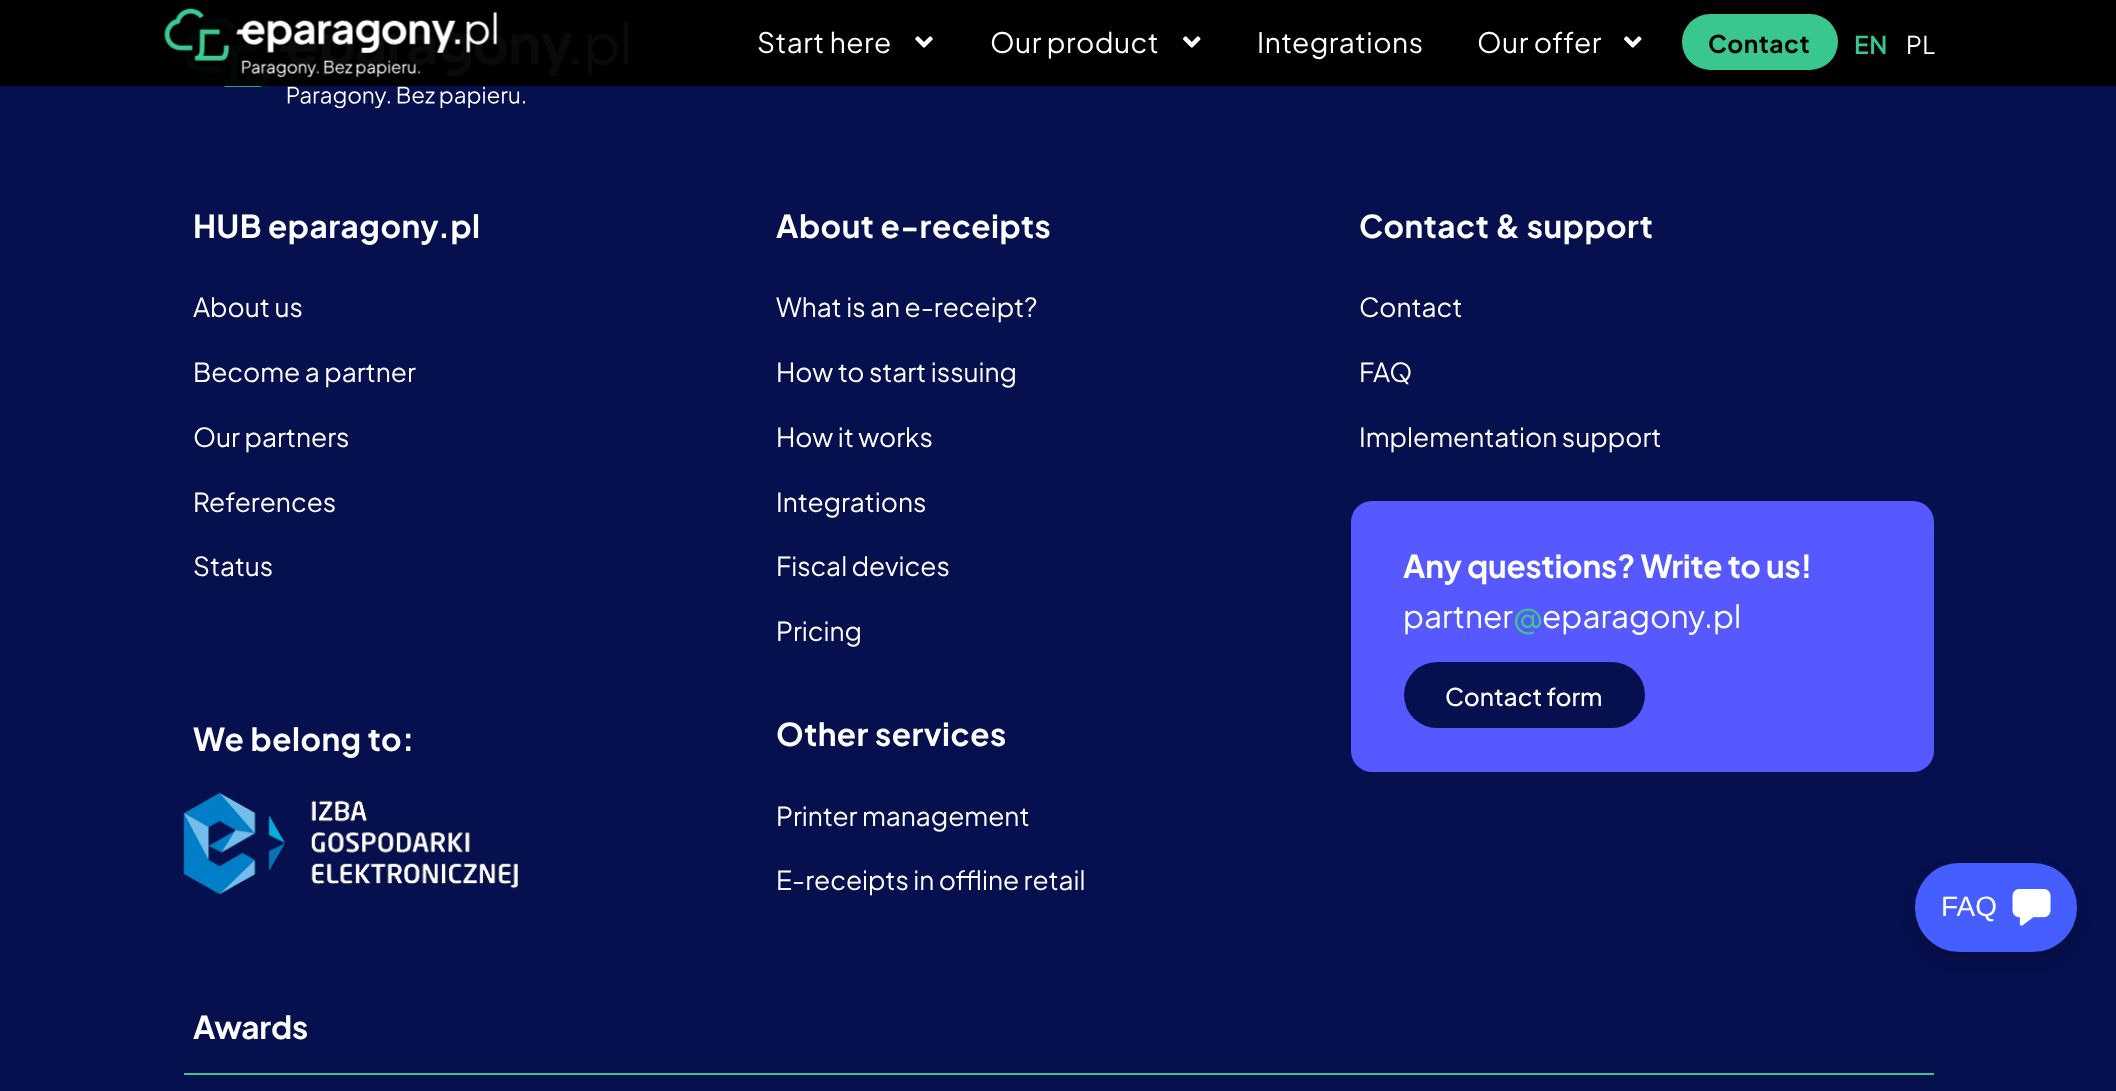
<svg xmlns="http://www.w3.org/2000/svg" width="2116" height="1091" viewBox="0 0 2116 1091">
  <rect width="100%" height="100%" fill="rgb(7,16,79)"/>
  <image x="184" y="18" width="444" height="91" href="pic4.png"/>
  <rect x="0" y="0" width="2116" height="86" fill="rgba(0,0,0,0.96)"/>
  <image x="164" y="8" width="334" height="69" href="pic1.png"/>
  <text x="757" y="53" font-family="Plus Jakarta Sans" font-size="28" letter-spacing="0.5" fill="rgb(255,255,255)">Start here</text>
  <image x="915" y="36" width="18" height="12" href="pic2.png"/>
  <text x="990" y="53" font-family="Plus Jakarta Sans" font-size="28" letter-spacing="0.5" fill="rgb(255,255,255)">Our product</text>
  <image x="1183" y="36" width="18" height="12" href="pic3.png"/>
  <g font-family="Plus Jakarta Sans" font-size="28" letter-spacing="0.5" fill="rgb(255,255,255)">
    <text x="1257" y="53">Integrations</text>
    <text x="1477" y="53">Our offer</text>
  </g>
  <image x="1624" y="36" width="18" height="12" href="pic3.png"/>
  <rect x="1682" y="14" width="156" height="56" rx="28" fill="rgb(57,199,141)"/>
  <text x="1708" y="53" font-family="Plus Jakarta Sans" font-size="24.5" font-weight="bold" letter-spacing="0.5" fill="rgb(0,0,0)">Contact</text>
  <text x="1854" y="54" font-family="Plus Jakarta Sans" font-size="24.5" font-weight="600" letter-spacing="0.5" fill="rgb(57,199,141)">EN</text>
  <text x="1906" y="54" font-family="Plus Jakarta Sans" font-size="24.5" letter-spacing="0.5" fill="rgb(255,255,255)">PL</text>
  <text x="193" y="238" font-family="Plus Jakarta Sans" font-size="31.5" font-weight="bold" letter-spacing="0.5" fill="rgb(255,255,255)">HUB eparagony.pl</text>
  <g font-family="Plus Jakarta Sans" font-size="26.25" fill="rgb(255,255,255)">
    <text x="193" y="317">About us</text>
    <text x="193" y="382">Become a partner</text>
    <text x="193" y="447">Our partners</text>
    <text x="193" y="512">References</text>
    <text x="193" y="576">Status</text>
  </g>
  <text x="193" y="751" font-family="Plus Jakarta Sans" font-size="31.5" font-weight="bold" letter-spacing="0.5" fill="rgb(255,255,255)">We belong to:</text>
  <image x="183" y="792" width="335" height="103" href="pic5.png"/>
  <text x="776" y="238" font-family="Plus Jakarta Sans" font-size="31.5" font-weight="bold" letter-spacing="0.5" fill="rgb(255,255,255)">About e-receipts</text>
  <g font-family="Plus Jakarta Sans" font-size="26.25" fill="rgb(255,255,255)">
    <text x="776" y="317">What is an e-receipt?</text>
    <text x="776" y="382">How to start issuing</text>
    <text x="776" y="447">How it works</text>
    <text x="776" y="512">Integrations</text>
    <text x="776" y="576">Fiscal devices</text>
    <text x="776" y="641">Pricing</text>
  </g>
  <text x="776" y="746" font-family="Plus Jakarta Sans" font-size="31.5" font-weight="bold" letter-spacing="0.5" fill="rgb(255,255,255)">Other services</text>
  <g font-family="Plus Jakarta Sans" font-size="26.25" fill="rgb(255,255,255)">
    <text x="776" y="826">Printer management</text>
    <text x="776" y="890">E-receipts in offline retail</text>
  </g>
  <text x="1359" y="238" font-family="Plus Jakarta Sans" font-size="31.5" font-weight="bold" letter-spacing="0.5" fill="rgb(255,255,255)">Contact &amp; support</text>
  <g font-family="Plus Jakarta Sans" font-size="26.25" fill="rgb(255,255,255)">
    <text x="1359" y="317">Contact</text>
    <text x="1359" y="382">FAQ</text>
    <text x="1359" y="447">Implementation support</text>
  </g>
  <rect x="1351" y="501" width="583" height="271" rx="21" fill="rgb(86,89,255)"/>
  <text x="1403" y="578" font-family="Plus Jakarta Sans" font-size="31.5" font-weight="bold" letter-spacing="-0.2" fill="rgb(255,255,255)">Any questions? Write to us!</text>
  <text x="1403" y="628" font-family="Plus Jakarta Sans" font-size="31.5" fill="rgb(255,255,255)">partner</text>
  <text x="1513" y="628" font-family="Plus Jakarta Sans" font-size="31.5" fill="rgb(57,199,141)">@</text>
  <text x="1542" y="628" font-family="Plus Jakarta Sans" font-size="31.5" fill="rgb(255,255,255)">eparagony.pl</text>
  <rect x="1404" y="662" width="241" height="66" rx="33" fill="rgb(7,16,79)"/>
  <text x="1445" y="706" font-family="Plus Jakarta Sans" font-size="24.5" font-weight="500" fill="rgb(255,255,255)">Contact form</text>
  <text x="193" y="1039" font-family="Plus Jakarta Sans" font-size="31.5" font-weight="bold" letter-spacing="-0.2" fill="rgb(255,255,255)">Awards</text>
  <rect x="184" y="1073" width="1750" height="2" fill="rgb(57,199,141)"/>
  <rect x="1915" y="870" width="162" height="89" rx="44" fill="rgba(0,0,0,0.2)" filter="blur(7px)"/>
  <rect x="1915" y="863" width="162" height="89" rx="44" fill="rgb(68,94,255)"/>
  <text x="1941" y="916" font-family="Liberation Sans" font-size="28" fill="rgb(255,255,255)">FAQ</text>
  <image x="2012" y="889" width="39" height="37" href="pic6.png"/>
</svg>
